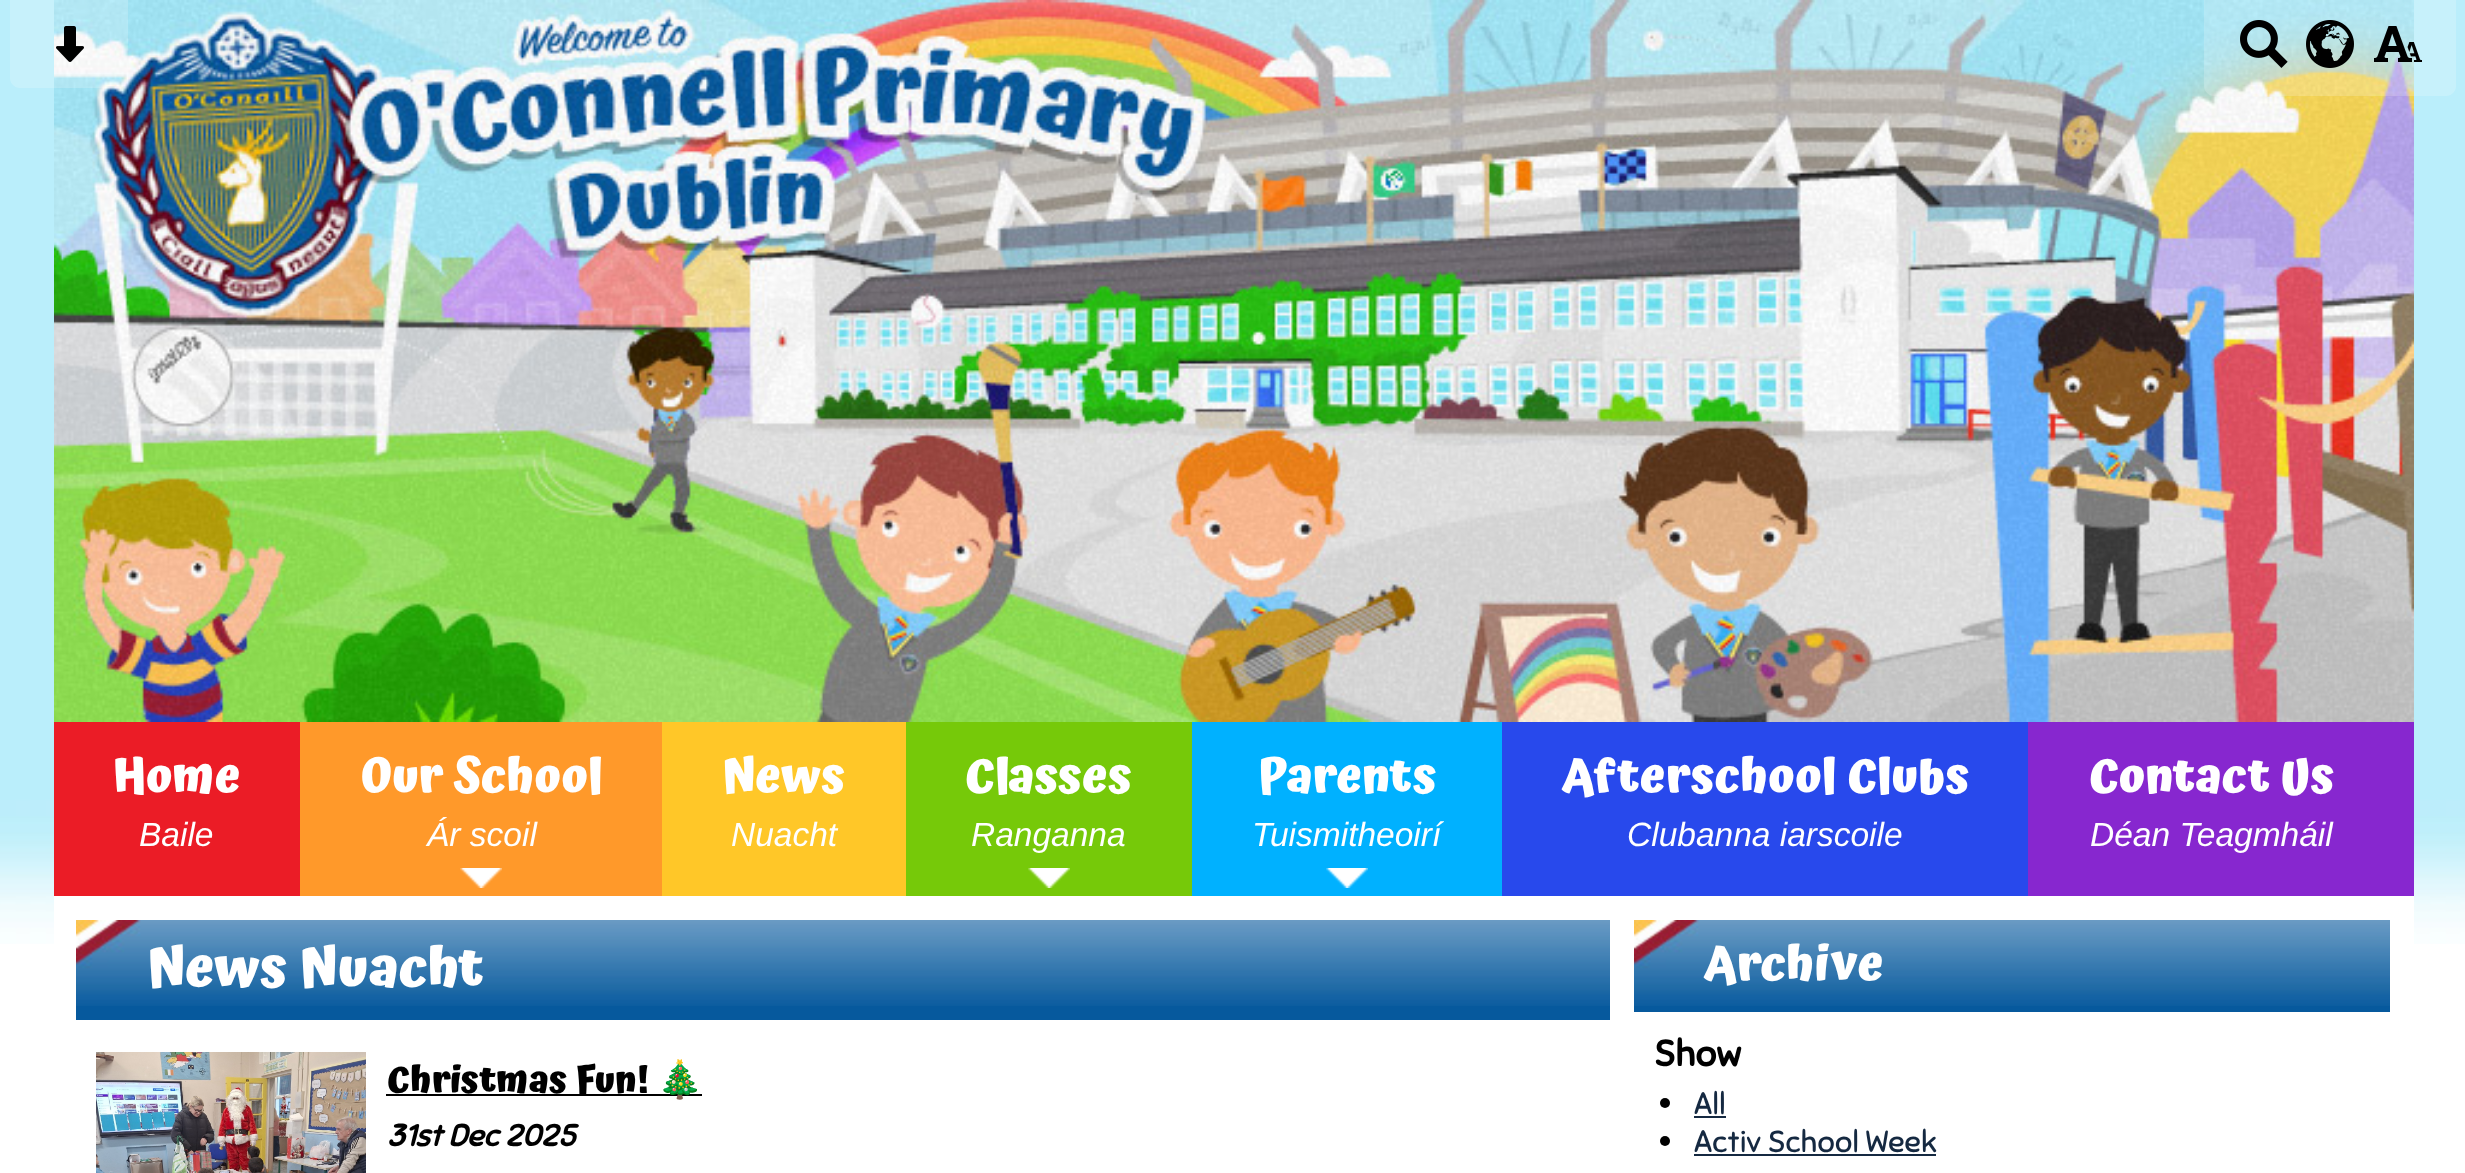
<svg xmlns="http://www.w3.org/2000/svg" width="2465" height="1173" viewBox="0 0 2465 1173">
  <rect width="100%" height="100%" fill="rgb(255,255,255)"/>
  <image x="0" y="0" width="2465" height="944" href="pic1.png"/>
  <image x="54" y="0" width="2360" height="722" href="pic6.png"/>
  <path d="M10 0H128V78C128 83.5 123.5 88 118 88H20C14.5 88 10 83.5 10 78Z" fill="rgba(255,255,255,0.2)"/>
  <image x="56" y="26" width="28" height="36" href="pic2.png"/>
  <path d="M2204 0H2456V86C2456 91.5 2451.5 96 2446 96H2214C2208.5 96 2204 91.5 2204 86Z" fill="rgba(255,255,255,0.2)"/>
  <image x="2240" y="20" width="48" height="48" href="pic3.png"/>
  <image x="2306" y="20" width="48" height="48" href="pic4.png"/>
  <image x="2374" y="26" width="48" height="36" href="pic5.png"/>
  <rect x="2028" y="722" width="386" height="174" fill="rgb(135,39,207)"/>
  <rect x="54" y="722" width="246" height="174" fill="rgb(235,28,38)"/>
  <text x="113" y="792" font-family="Atma" font-size="48" font-weight="bold" fill="rgb(255,255,255)">Home</text>
  <text x="139" y="846" font-family="Liberation Sans" font-size="33.5" font-style="italic" fill="rgb(255,255,255)">Baile</text>
  <rect x="300" y="722" width="362" height="174" fill="rgb(255,153,42)"/>
  <image x="460" y="868" width="42" height="20" href="pic7.png"/>
  <text x="361" y="792" font-family="Atma" font-size="48" font-weight="bold" fill="rgb(255,255,255)">Our School</text>
  <text x="427" y="846" font-family="Liberation Sans" font-size="33.5" font-style="italic" fill="rgb(255,255,255)">Ár scoil</text>
  <rect x="662" y="722" width="244" height="174" fill="rgb(255,199,40)"/>
  <text x="722" y="792" font-family="Atma" font-size="48" font-weight="bold" fill="rgb(255,255,255)">News</text>
  <text x="731" y="846" font-family="Liberation Sans" font-size="33.5" font-style="italic" fill="rgb(255,255,255)">Nuacht</text>
  <rect x="906" y="722" width="286" height="174" fill="rgb(118,201,9)"/>
  <image x="1028" y="868" width="42" height="20" href="pic8.png"/>
  <text x="965" y="792" font-family="Atma" font-size="48" font-weight="bold" fill="rgb(255,255,255)">Classes</text>
  <text x="971" y="846" font-family="Liberation Sans" font-size="33.5" font-style="italic" fill="rgb(255,255,255)">Ranganna</text>
  <rect x="1192" y="722" width="310" height="174" fill="rgb(0,177,255)"/>
  <image x="1326" y="868" width="42" height="20" href="pic9.png"/>
  <text x="1258" y="792" font-family="Atma" font-size="48" font-weight="bold" fill="rgb(255,255,255)">Parents</text>
  <text x="1252" y="846" font-family="Liberation Sans" font-size="33.5" font-style="italic" fill="rgb(255,255,255)">Tuismitheoirí</text>
  <rect x="1502" y="722" width="526" height="174" fill="rgb(40,73,236)"/>
  <text x="1562" y="792" font-family="Atma" font-size="48" font-weight="bold" fill="rgb(255,255,255)">Afterschool Clubs</text>
  <text x="1627" y="846" font-family="Liberation Sans" font-size="33.5" font-style="italic" fill="rgb(255,255,255)">Clubanna iarscoile</text>
  <text x="2089" y="792" font-family="Atma" font-size="48" font-weight="bold" fill="rgb(255,255,255)">Contact Us</text>
  <text x="2090" y="846" font-family="Liberation Sans" font-size="33.5" font-style="italic" fill="rgb(255,255,255)">Déan Teagmháil</text>
  <rect x="54" y="896" width="2360" height="48" fill="rgb(255,255,255)"/>
  <rect x="76" y="1006" width="1534" height="14" fill="rgb(6,89,157)"/>
  <image x="76" y="920" width="1534" height="86" href="pic10.png"/>
  <text x="147" y="986" font-family="Atma" font-size="54.75" font-weight="bold" fill="rgb(255,255,255)">News Nuacht</text>
  <image x="96" y="1052" width="270" height="121" href="pic11.png"/>
  <rect x="386" y="1094" width="316" height="2" fill="rgb(0,0,0)"/>
  <text x="387" y="1092" font-family="Atma" font-size="36.75" font-weight="bold" fill="rgb(0,0,0)">Christmas Fun!</text>
  <text x="657" y="1092" font-family="Noto Color Emoji" font-size="36.75" fill="rgb(0,0,0)">🎄</text>
  <text x="387" y="1146" font-family="Sniglet" font-size="30.5" font-weight="bold" font-style="italic" fill="rgb(0,0,0)">31st Dec 2025</text>
  <rect x="1634" y="1006" width="756" height="6" fill="rgb(6,89,157)"/>
  <image x="1634" y="920" width="756" height="86" href="pic12.png"/>
  <text x="1704" y="980" font-family="Atma" font-size="48.5" font-weight="bold" fill="rgb(255,255,255)">Archive</text>
  <text x="1654" y="1066" font-family="Sniglet" font-size="36.5" font-weight="bold" fill="rgb(0,0,0)">Show</text>
  <circle cx="1665" cy="1103" r="5" fill="rgb(0,0,0)"/>
  <text x="1694" y="1114" font-family="Sniglet" font-size="30.5" fill="rgb(21,41,65)">All</text>
  <rect x="1694" y="1116" width="32" height="2" fill="rgb(21,41,65)"/>
  <circle cx="1665" cy="1141" r="5" fill="rgb(0,0,0)"/>
  <text x="1694" y="1152" font-family="Sniglet" font-size="30.5" fill="rgb(21,41,65)">Activ School Week</text>
  <rect x="1694" y="1154" width="242" height="2" fill="rgb(21,41,65)"/>
</svg>
